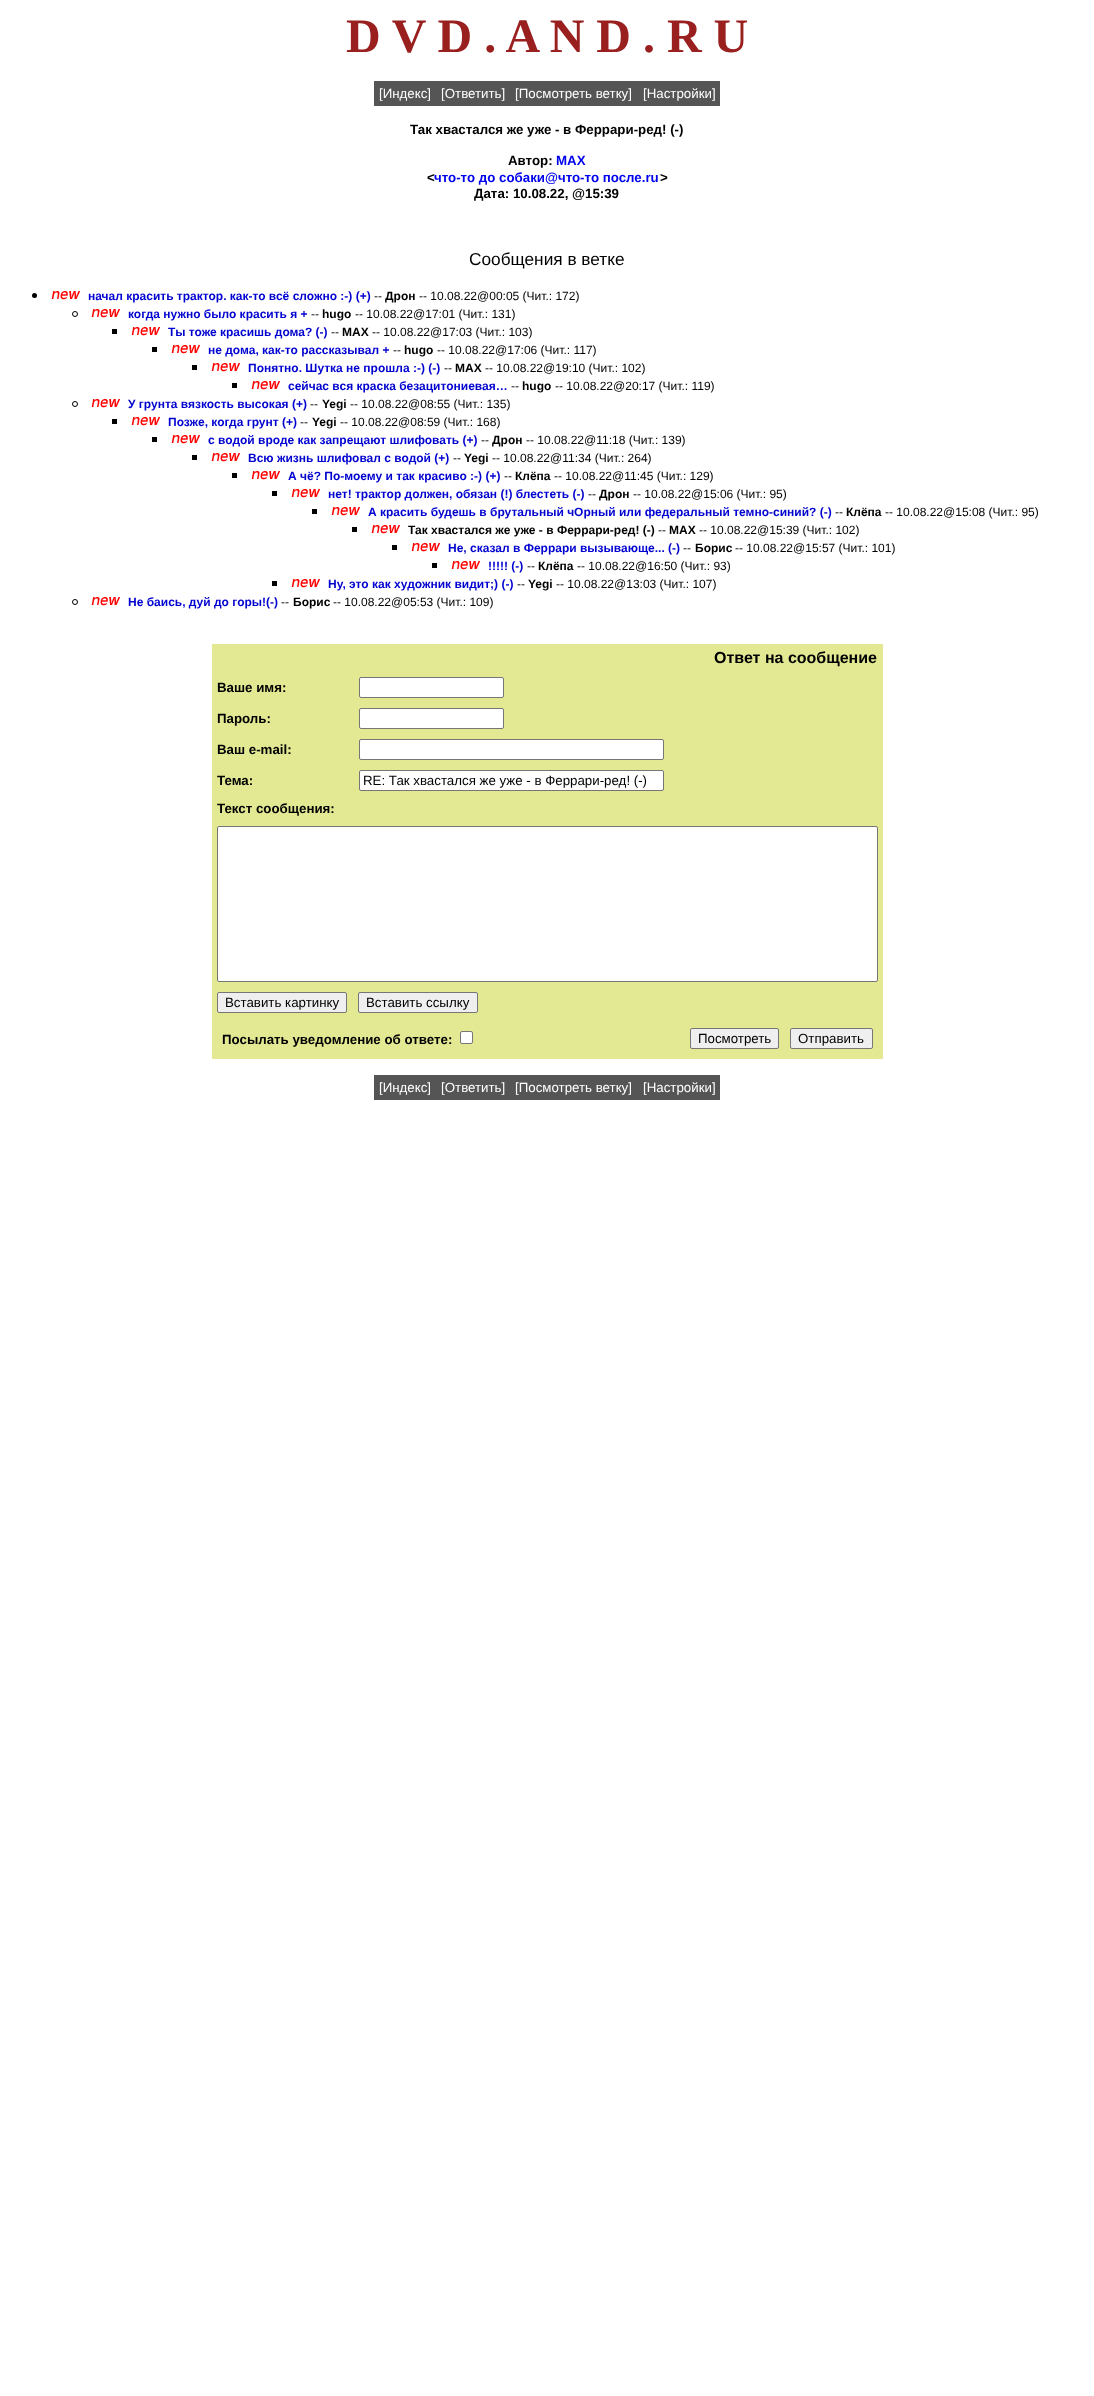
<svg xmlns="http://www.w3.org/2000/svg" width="1094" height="2396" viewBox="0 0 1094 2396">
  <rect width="100%" height="100%" fill="rgb(255,255,255)"/>
  <text x="346" y="52" font-family="Liberation Serif" font-size="48" font-weight="bold" fill="rgb(154,32,32)">D V D . A N D . R U</text>
  <rect x="374" y="81" width="346" height="25" fill="rgb(85,85,85)"/>
  <g font-family="Liberation Sans" font-size="13.3" fill="rgb(255,255,255)">
    <text x="379" y="98">[Индекс]</text>
    <text x="441" y="98">[Ответить]</text>
    <text x="515" y="98">[Посмотреть ветку]</text>
    <text x="643" y="98">[Настройки]</text>
  </g>
  <g font-family="Liberation Sans" font-size="13.3" font-weight="bold" fill="rgb(0,0,0)">
    <text x="410" y="134">Так хвастался же уже - в Феррари-ред! (-)</text>
    <text x="508" y="165">Автор:</text>
  </g>
  <text x="556" y="165" font-family="Liberation Sans" font-size="13.3" font-weight="bold" fill="rgb(0,0,238)">MAX</text>
  <text x="427" y="182" font-family="Liberation Sans" font-size="13.3" font-weight="bold" fill="rgb(0,0,0)">&lt;</text>
  <text x="434" y="182" font-family="Liberation Sans" font-size="13.3" font-weight="bold" fill="rgb(0,0,238)">что-то до собаки@что-то после.ru</text>
  <g font-family="Liberation Sans" font-size="13.3" font-weight="bold" fill="rgb(0,0,0)">
    <text x="660" y="182">&gt;</text>
    <text x="474" y="198">Дата: 10.08.22, @15:39</text>
  </g>
  <text x="469" y="265" font-family="Liberation Sans" font-size="17.25" fill="rgb(0,0,0)">Сообщения в ветке</text>
  <circle cx="34.5" cy="295.5" r="2.5" fill="rgb(0,0,0)"/>
  <image x="51" y="291" width="30" height="9" href="pic1.png"/>
  <text x="88" y="300" font-family="Liberation Sans" font-size="12" font-weight="bold" fill="rgb(0,0,208)">начал красить трактор. как-то всё сложно :-) (+)</text>
  <text x="374" y="300" font-family="Liberation Sans" font-size="12" fill="rgb(0,0,0)">--</text>
  <text x="385" y="300" font-family="Liberation Sans" font-size="12" font-weight="bold" fill="rgb(0,0,0)">Дрон</text>
  <text x="419" y="300" font-family="Liberation Sans" font-size="12" fill="rgb(0,0,0)">-- 10.08.22@00:05 (Чит.: 172)</text>
  <circle cx="75" cy="314" r="2.5" fill="none" stroke="rgb(0,0,0)"/>
  <image x="91" y="309" width="30" height="9" href="pic1.png"/>
  <text x="128" y="318" font-family="Liberation Sans" font-size="12" font-weight="bold" fill="rgb(0,0,208)">когда нужно было красить я +</text>
  <text x="311" y="318" font-family="Liberation Sans" font-size="12" fill="rgb(0,0,0)">--</text>
  <text x="322" y="318" font-family="Liberation Sans" font-size="12" font-weight="bold" fill="rgb(0,0,0)">hugo</text>
  <text x="355" y="318" font-family="Liberation Sans" font-size="12" fill="rgb(0,0,0)">-- 10.08.22@17:01 (Чит.: 131)</text>
  <rect x="112" y="329" width="5" height="5" fill="rgb(0,0,0)"/>
  <image x="131" y="327" width="30" height="9" href="pic1.png"/>
  <text x="168" y="336" font-family="Liberation Sans" font-size="12" font-weight="bold" fill="rgb(0,0,208)">Ты тоже красишь дома? (-)</text>
  <text x="331" y="336" font-family="Liberation Sans" font-size="12" fill="rgb(0,0,0)">--</text>
  <text x="342" y="336" font-family="Liberation Sans" font-size="12" font-weight="bold" fill="rgb(0,0,0)">MAX</text>
  <text x="372" y="336" font-family="Liberation Sans" font-size="12" fill="rgb(0,0,0)">-- 10.08.22@17:03 (Чит.: 103)</text>
  <rect x="152" y="347" width="5" height="5" fill="rgb(0,0,0)"/>
  <image x="171" y="345" width="30" height="9" href="pic1.png"/>
  <text x="208" y="354" font-family="Liberation Sans" font-size="12" font-weight="bold" fill="rgb(0,0,208)">не дома, как-то рассказывал +</text>
  <text x="393" y="354" font-family="Liberation Sans" font-size="12" fill="rgb(0,0,0)">--</text>
  <text x="404" y="354" font-family="Liberation Sans" font-size="12" font-weight="bold" fill="rgb(0,0,0)">hugo</text>
  <text x="437" y="354" font-family="Liberation Sans" font-size="12" fill="rgb(0,0,0)">-- 10.08.22@17:06 (Чит.: 117)</text>
  <rect x="192" y="365" width="5" height="5" fill="rgb(0,0,0)"/>
  <image x="211" y="363" width="30" height="9" href="pic1.png"/>
  <text x="248" y="372" font-family="Liberation Sans" font-size="12" font-weight="bold" fill="rgb(0,0,208)">Понятно. Шутка не прошла :-) (-)</text>
  <text x="444" y="372" font-family="Liberation Sans" font-size="12" fill="rgb(0,0,0)">--</text>
  <text x="455" y="372" font-family="Liberation Sans" font-size="12" font-weight="bold" fill="rgb(0,0,0)">MAX</text>
  <text x="485" y="372" font-family="Liberation Sans" font-size="12" fill="rgb(0,0,0)">-- 10.08.22@19:10 (Чит.: 102)</text>
  <rect x="232" y="383" width="5" height="5" fill="rgb(0,0,0)"/>
  <image x="251" y="381" width="30" height="9" href="pic1.png"/>
  <text x="288" y="390" font-family="Liberation Sans" font-size="12" font-weight="bold" fill="rgb(0,0,208)">сейчас вся краска безацитониевая…</text>
  <text x="511" y="390" font-family="Liberation Sans" font-size="12" fill="rgb(0,0,0)">--</text>
  <text x="522" y="390" font-family="Liberation Sans" font-size="12" font-weight="bold" fill="rgb(0,0,0)">hugo</text>
  <text x="555" y="390" font-family="Liberation Sans" font-size="12" fill="rgb(0,0,0)">-- 10.08.22@20:17 (Чит.: 119)</text>
  <circle cx="75" cy="404" r="2.5" fill="none" stroke="rgb(0,0,0)"/>
  <image x="91" y="399" width="30" height="9" href="pic1.png"/>
  <text x="128" y="408" font-family="Liberation Sans" font-size="12" font-weight="bold" fill="rgb(0,0,208)">У грунта вязкость высокая (+)</text>
  <text x="310" y="408" font-family="Liberation Sans" font-size="12" fill="rgb(0,0,0)">--</text>
  <text x="322" y="408" font-family="Liberation Sans" font-size="12" font-weight="bold" fill="rgb(0,0,0)">Yegi</text>
  <text x="350" y="408" font-family="Liberation Sans" font-size="12" fill="rgb(0,0,0)">-- 10.08.22@08:55 (Чит.: 135)</text>
  <rect x="112" y="419" width="5" height="5" fill="rgb(0,0,0)"/>
  <image x="131" y="417" width="30" height="9" href="pic1.png"/>
  <text x="168" y="426" font-family="Liberation Sans" font-size="12" font-weight="bold" fill="rgb(0,0,208)">Позже, когда грунт (+)</text>
  <text x="300" y="426" font-family="Liberation Sans" font-size="12" fill="rgb(0,0,0)">--</text>
  <text x="312" y="426" font-family="Liberation Sans" font-size="12" font-weight="bold" fill="rgb(0,0,0)">Yegi</text>
  <text x="340" y="426" font-family="Liberation Sans" font-size="12" fill="rgb(0,0,0)">-- 10.08.22@08:59 (Чит.: 168)</text>
  <rect x="152" y="437" width="5" height="5" fill="rgb(0,0,0)"/>
  <image x="171" y="435" width="30" height="9" href="pic1.png"/>
  <text x="208" y="444" font-family="Liberation Sans" font-size="12" font-weight="bold" fill="rgb(0,0,208)">с водой вроде как запрещают шлифовать (+)</text>
  <text x="481" y="444" font-family="Liberation Sans" font-size="12" fill="rgb(0,0,0)">--</text>
  <text x="492" y="444" font-family="Liberation Sans" font-size="12" font-weight="bold" fill="rgb(0,0,0)">Дрон</text>
  <text x="526" y="444" font-family="Liberation Sans" font-size="12" fill="rgb(0,0,0)">-- 10.08.22@11:18 (Чит.: 139)</text>
  <rect x="192" y="455" width="5" height="5" fill="rgb(0,0,0)"/>
  <image x="211" y="453" width="30" height="9" href="pic1.png"/>
  <text x="248" y="462" font-family="Liberation Sans" font-size="12" font-weight="bold" fill="rgb(0,0,208)">Всю жизнь шлифовал с водой (+)</text>
  <text x="453" y="462" font-family="Liberation Sans" font-size="12" fill="rgb(0,0,0)">--</text>
  <text x="464" y="462" font-family="Liberation Sans" font-size="12" font-weight="bold" fill="rgb(0,0,0)">Yegi</text>
  <text x="492" y="462" font-family="Liberation Sans" font-size="12" fill="rgb(0,0,0)">-- 10.08.22@11:34 (Чит.: 264)</text>
  <rect x="232" y="473" width="5" height="5" fill="rgb(0,0,0)"/>
  <image x="251" y="471" width="30" height="9" href="pic1.png"/>
  <text x="288" y="480" font-family="Liberation Sans" font-size="12" font-weight="bold" fill="rgb(0,0,208)">А чё? По-моему и так красиво :-) (+)</text>
  <text x="504" y="480" font-family="Liberation Sans" font-size="12" fill="rgb(0,0,0)">--</text>
  <text x="515" y="480" font-family="Liberation Sans" font-size="12" font-weight="bold" fill="rgb(0,0,0)">Клёпа</text>
  <text x="554" y="480" font-family="Liberation Sans" font-size="12" fill="rgb(0,0,0)">-- 10.08.22@11:45 (Чит.: 129)</text>
  <rect x="272" y="491" width="5" height="5" fill="rgb(0,0,0)"/>
  <image x="291" y="489" width="30" height="9" href="pic1.png"/>
  <text x="328" y="498" font-family="Liberation Sans" font-size="12" font-weight="bold" fill="rgb(0,0,208)">нет! трактор должен, обязан (!) блестеть (-)</text>
  <text x="588" y="498" font-family="Liberation Sans" font-size="12" fill="rgb(0,0,0)">--</text>
  <text x="599" y="498" font-family="Liberation Sans" font-size="12" font-weight="bold" fill="rgb(0,0,0)">Дрон</text>
  <text x="633" y="498" font-family="Liberation Sans" font-size="12" fill="rgb(0,0,0)">-- 10.08.22@15:06 (Чит.: 95)</text>
  <rect x="312" y="509" width="5" height="5" fill="rgb(0,0,0)"/>
  <image x="331" y="507" width="30" height="9" href="pic1.png"/>
  <text x="368" y="516" font-family="Liberation Sans" font-size="12" font-weight="bold" fill="rgb(0,0,208)">А красить будешь в брутальный чОрный или федеральный темно-синий? (-)</text>
  <text x="835" y="516" font-family="Liberation Sans" font-size="12" fill="rgb(0,0,0)">--</text>
  <text x="846" y="516" font-family="Liberation Sans" font-size="12" font-weight="bold" fill="rgb(0,0,0)">Клёпа</text>
  <text x="885" y="516" font-family="Liberation Sans" font-size="12" fill="rgb(0,0,0)">-- 10.08.22@15:08 (Чит.: 95)</text>
  <rect x="352" y="527" width="5" height="5" fill="rgb(0,0,0)"/>
  <image x="371" y="525" width="30" height="9" href="pic1.png"/>
  <text x="408" y="534" font-family="Liberation Sans" font-size="12" font-weight="bold" fill="rgb(0,0,0)">Так хвастался же уже - в Феррари-ред! (-)</text>
  <text x="658" y="534" font-family="Liberation Sans" font-size="12" fill="rgb(0,0,0)">--</text>
  <text x="669" y="534" font-family="Liberation Sans" font-size="12" font-weight="bold" fill="rgb(0,0,0)">MAX</text>
  <text x="699" y="534" font-family="Liberation Sans" font-size="12" fill="rgb(0,0,0)">-- 10.08.22@15:39 (Чит.: 102)</text>
  <rect x="392" y="545" width="5" height="5" fill="rgb(0,0,0)"/>
  <image x="411" y="543" width="30" height="9" href="pic1.png"/>
  <text x="448" y="552" font-family="Liberation Sans" font-size="12" font-weight="bold" fill="rgb(0,0,208)">Не, сказал в Феррари вызывающе... (-)</text>
  <text x="683" y="552" font-family="Liberation Sans" font-size="12" fill="rgb(0,0,0)">--</text>
  <text x="695" y="552" font-family="Liberation Sans" font-size="12" font-weight="bold" fill="rgb(0,0,0)">Борис</text>
  <text x="735" y="552" font-family="Liberation Sans" font-size="12" fill="rgb(0,0,0)">-- 10.08.22@15:57 (Чит.: 101)</text>
  <rect x="432" y="563" width="5" height="5" fill="rgb(0,0,0)"/>
  <image x="451" y="561" width="30" height="9" href="pic1.png"/>
  <text x="488" y="570" font-family="Liberation Sans" font-size="12" font-weight="bold" fill="rgb(0,0,208)">!!!!! (-)</text>
  <text x="527" y="570" font-family="Liberation Sans" font-size="12" fill="rgb(0,0,0)">--</text>
  <text x="538" y="570" font-family="Liberation Sans" font-size="12" font-weight="bold" fill="rgb(0,0,0)">Клёпа</text>
  <text x="577" y="570" font-family="Liberation Sans" font-size="12" fill="rgb(0,0,0)">-- 10.08.22@16:50 (Чит.: 93)</text>
  <rect x="272" y="581" width="5" height="5" fill="rgb(0,0,0)"/>
  <image x="291" y="579" width="30" height="9" href="pic1.png"/>
  <text x="328" y="588" font-family="Liberation Sans" font-size="12" font-weight="bold" fill="rgb(0,0,208)">Ну, это как художник видит;) (-)</text>
  <text x="517" y="588" font-family="Liberation Sans" font-size="12" fill="rgb(0,0,0)">--</text>
  <text x="528" y="588" font-family="Liberation Sans" font-size="12" font-weight="bold" fill="rgb(0,0,0)">Yegi</text>
  <text x="556" y="588" font-family="Liberation Sans" font-size="12" fill="rgb(0,0,0)">-- 10.08.22@13:03 (Чит.: 107)</text>
  <circle cx="75" cy="602" r="2.5" fill="none" stroke="rgb(0,0,0)"/>
  <image x="91" y="597" width="30" height="9" href="pic1.png"/>
  <text x="128" y="606" font-family="Liberation Sans" font-size="12" font-weight="bold" fill="rgb(0,0,208)">Не баись, дуй до горы!(-)</text>
  <text x="281" y="606" font-family="Liberation Sans" font-size="12" fill="rgb(0,0,0)">--</text>
  <text x="293" y="606" font-family="Liberation Sans" font-size="12" font-weight="bold" fill="rgb(0,0,0)">Борис</text>
  <text x="333" y="606" font-family="Liberation Sans" font-size="12" fill="rgb(0,0,0)">-- 10.08.22@05:53 (Чит.: 109)</text>
  <rect x="212" y="644" width="671" height="28" fill="rgb(226,233,146)"/>
  <text x="714" y="663" font-family="Liberation Sans" font-size="16" font-weight="bold" fill="rgb(0,0,0)">Ответ на сообщение</text>
  <rect x="212" y="672" width="671" height="31" fill="rgb(226,233,146)"/>
  <text x="217" y="692" font-family="Liberation Sans" font-size="13.3" font-weight="bold" fill="rgb(0,0,0)">Ваше имя:</text>
  <rect x="359.5" y="677.5" width="144" height="20" rx="1.5" fill="rgb(255,255,255)" stroke="rgb(118,118,118)"/>
  <rect x="212" y="703" width="671" height="31" fill="rgb(226,233,146)"/>
  <text x="217" y="723" font-family="Liberation Sans" font-size="13.3" font-weight="bold" fill="rgb(0,0,0)">Пароль:</text>
  <rect x="359.5" y="708.5" width="144" height="20" rx="1.5" fill="rgb(255,255,255)" stroke="rgb(118,118,118)"/>
  <rect x="212" y="734" width="671" height="31" fill="rgb(226,233,146)"/>
  <text x="217" y="754" font-family="Liberation Sans" font-size="13.3" font-weight="bold" fill="rgb(0,0,0)">Ваш e-mail:</text>
  <rect x="359.5" y="739.5" width="304" height="20" rx="1.5" fill="rgb(255,255,255)" stroke="rgb(118,118,118)"/>
  <rect x="212" y="765" width="671" height="294" fill="rgb(226,233,146)"/>
  <text x="217" y="785" font-family="Liberation Sans" font-size="13.3" font-weight="bold" fill="rgb(0,0,0)">Тема:</text>
  <rect x="359.5" y="770.5" width="304" height="20" rx="1.5" fill="rgb(255,255,255)" stroke="rgb(118,118,118)"/>
  <text x="363" y="785" font-family="Liberation Sans" font-size="13.3" fill="rgb(0,0,0)">RE: Так хвастался же уже - в Феррари-ред! (-)</text>
  <text x="217" y="813" font-family="Liberation Sans" font-size="13.3" font-weight="bold" fill="rgb(0,0,0)">Текст сообщения:</text>
  <rect x="217.5" y="826.5" width="660" height="155" rx="1.5" fill="rgb(255,255,255)" stroke="rgb(118,118,118)"/>
  <rect x="217.5" y="992.5" width="129" height="20" rx="1.5" fill="rgb(239,239,239)" stroke="rgb(118,118,118)"/>
  <text x="225" y="1007" font-family="Liberation Sans" font-size="13.3" fill="rgb(0,0,0)">Вставить картинку</text>
  <rect x="358.5" y="992.5" width="119" height="20" rx="1.5" fill="rgb(239,239,239)" stroke="rgb(118,118,118)"/>
  <text x="366" y="1007" font-family="Liberation Sans" font-size="13.3" fill="rgb(0,0,0)">Вставить ссылку</text>
  <text x="222" y="1044" font-family="Liberation Sans" font-size="13.3" font-weight="bold" fill="rgb(0,0,0)">Посылать уведомление об ответе:</text>
  <rect x="460.5" y="1031.5" width="12" height="12" rx="1.5" fill="rgb(255,255,255)" stroke="rgb(118,118,118)"/>
  <rect x="690.5" y="1028.5" width="88" height="20" rx="1.5" fill="rgb(239,239,239)" stroke="rgb(118,118,118)"/>
  <text x="698" y="1043" font-family="Liberation Sans" font-size="13.3" fill="rgb(0,0,0)">Посмотреть</text>
  <rect x="790.5" y="1028.5" width="82" height="20" rx="1.5" fill="rgb(239,239,239)" stroke="rgb(118,118,118)"/>
  <text x="798" y="1043" font-family="Liberation Sans" font-size="13.3" fill="rgb(0,0,0)">Отправить</text>
  <rect x="374" y="1075" width="346" height="25" fill="rgb(85,85,85)"/>
  <g font-family="Liberation Sans" font-size="13.3" fill="rgb(255,255,255)">
    <text x="379" y="1092">[Индекс]</text>
    <text x="441" y="1092">[Ответить]</text>
    <text x="515" y="1092">[Посмотреть ветку]</text>
    <text x="643" y="1092">[Настройки]</text>
  </g>
</svg>
